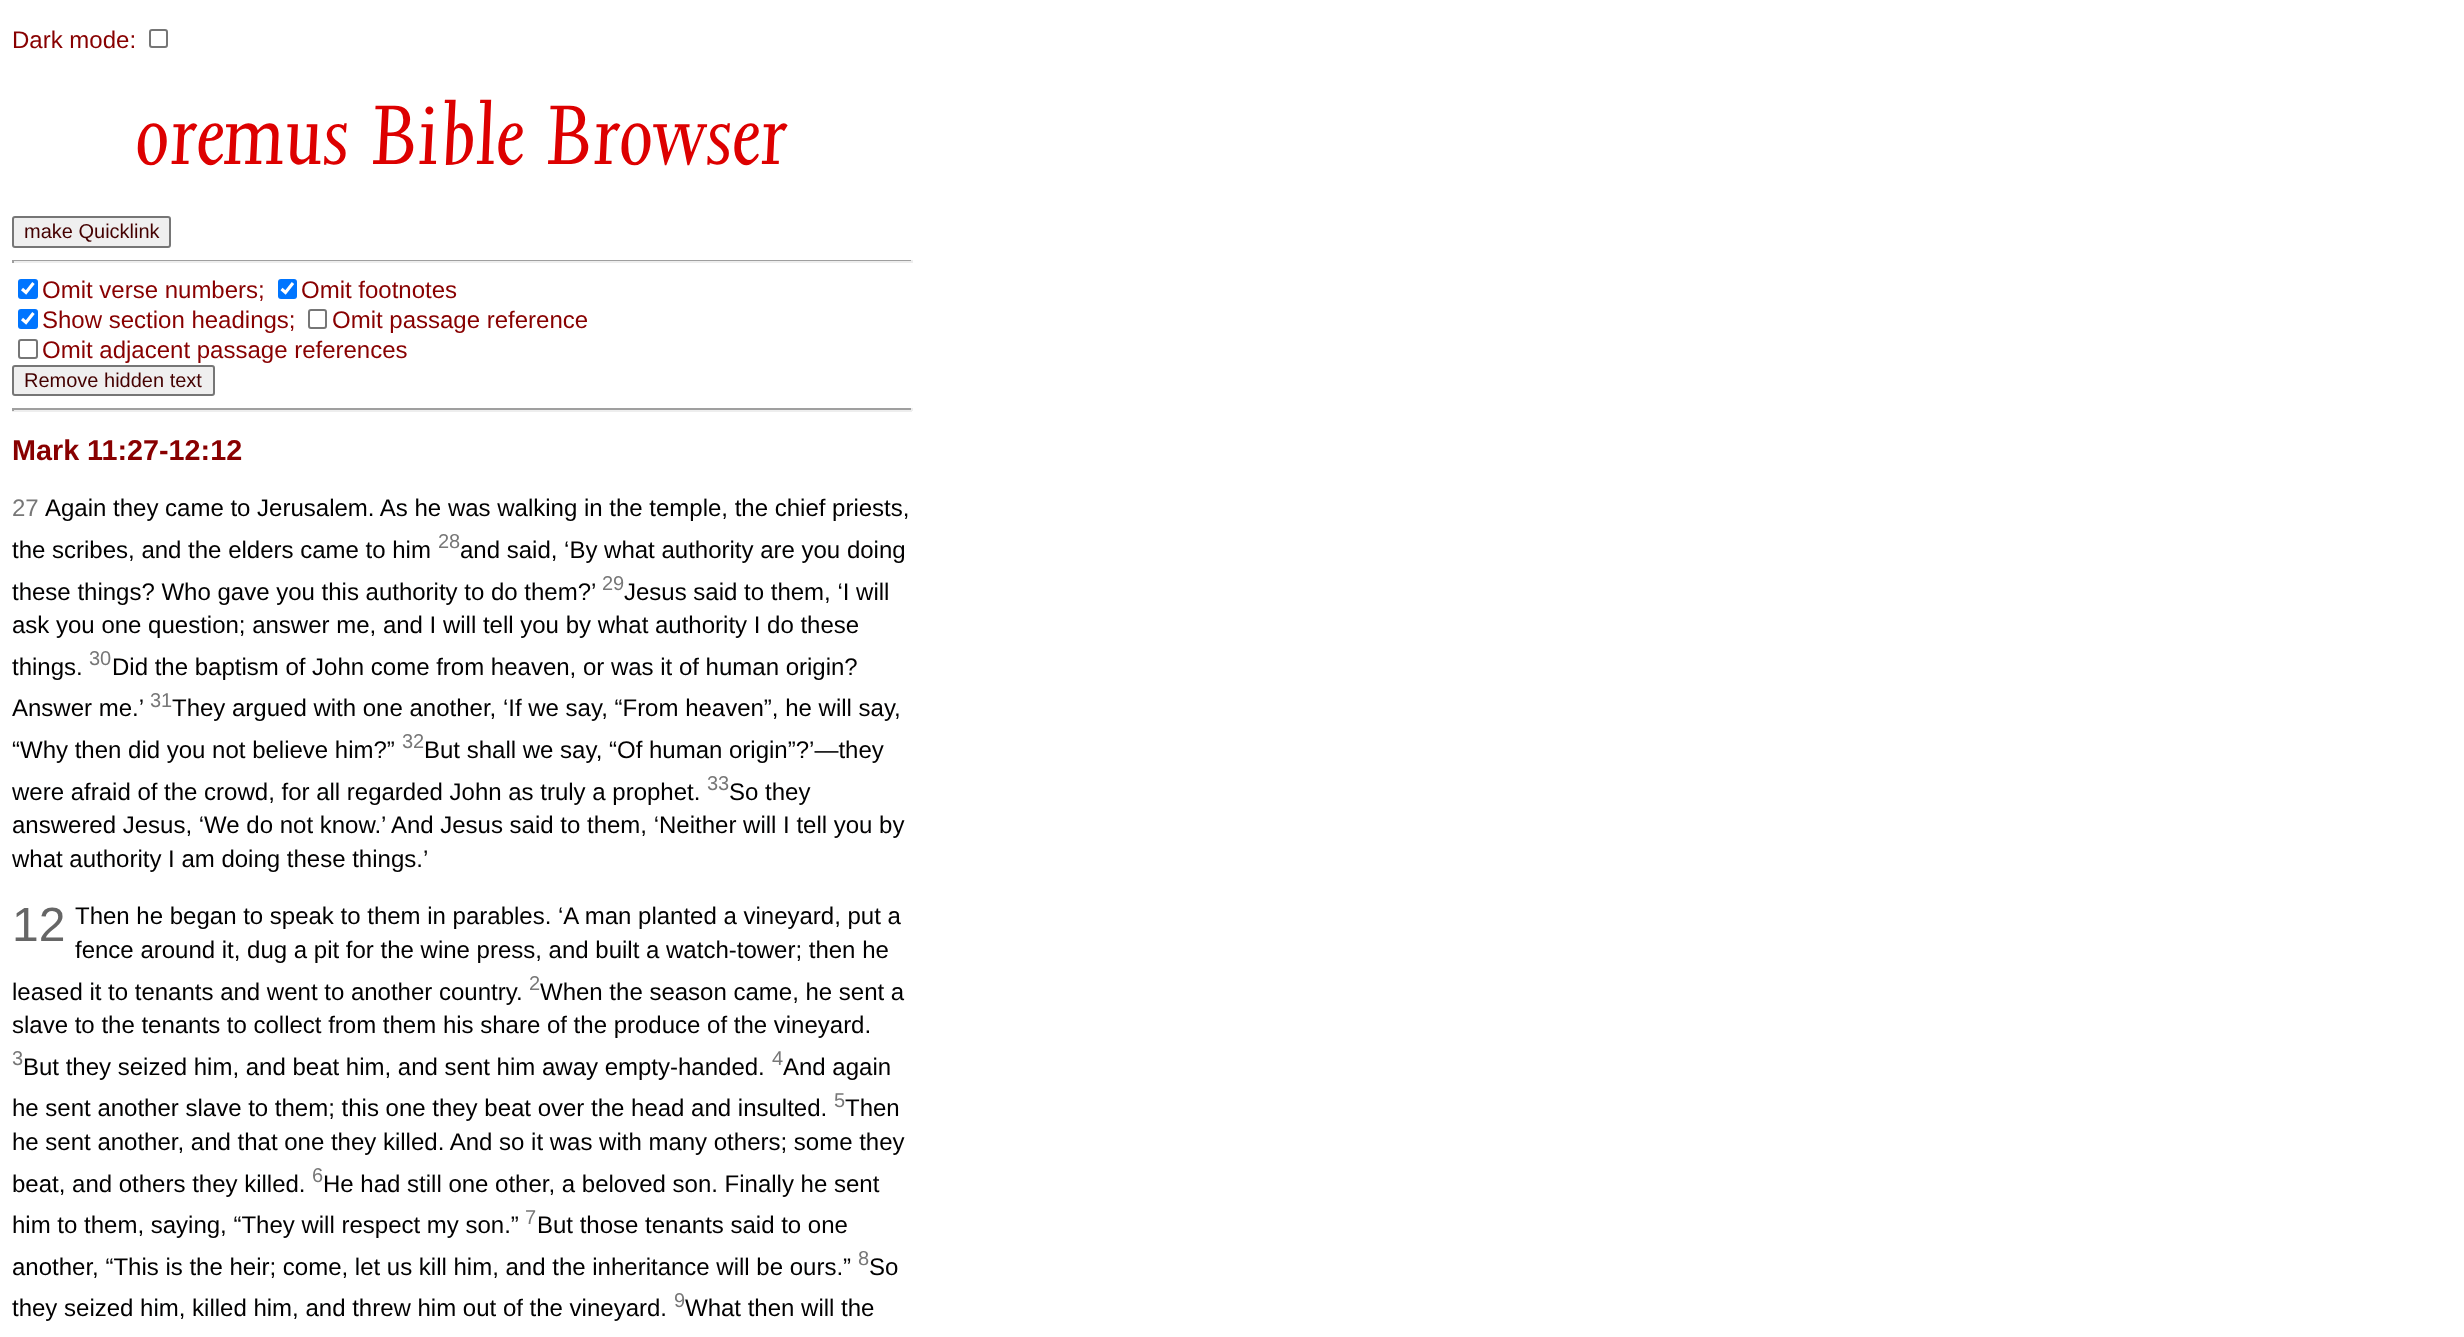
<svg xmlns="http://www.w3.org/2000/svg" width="2464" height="1337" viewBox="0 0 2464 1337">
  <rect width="100%" height="100%" fill="rgb(255,255,255)"/>
  <text x="12" y="48" font-family="Liberation Sans" font-size="24" fill="rgb(136,0,0)">Dark mode:</text>
  <rect x="150" y="30" width="17" height="17" rx="2" fill="none" stroke="rgb(118,118,118)" stroke-width="2"/>
  <text x="136" y="164" font-family="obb" font-size="97.5" fill="rgb(221,0,0)">oremus Bible Browser</text>
  <rect x="13" y="217" width="157" height="30" rx="2" fill="rgb(239,239,239)" stroke="rgb(118,118,118)" stroke-width="2"/>
  <text x="24" y="238" font-family="Liberation Sans" font-size="20" fill="rgb(68,0,0)">make Quicklink</text>
  <rect x="12" y="260" width="900" height="1" fill="rgb(159,159,159)"/>
  <rect x="911" y="260" width="2" height="3" fill="rgb(238,238,238)"/>
  <rect x="12" y="261" width="900" height="2" fill="rgb(238,238,238)"/>
  <rect x="12" y="260" width="2" height="3" fill="rgb(159,159,159)"/>
  <rect x="18" y="279" width="20" height="20" rx="3" fill="rgb(0,117,255)"/>
  <path d="M22 289L26 292.5L33.5 283" fill="none" stroke="rgb(255,255,255)" stroke-width="3.1"/>
  <text x="42" y="298" font-family="Liberation Sans" font-size="24" fill="rgb(136,0,0)">Omit verse numbers;</text>
  <rect x="278" y="279" width="19" height="20" rx="3" fill="rgb(0,117,255)"/>
  <path d="M281.5 289L285.5 292.5L293 283" fill="none" stroke="rgb(255,255,255)" stroke-width="3.1"/>
  <text x="301" y="298" font-family="Liberation Sans" font-size="24" fill="rgb(136,0,0)">Omit footnotes</text>
  <rect x="18" y="309" width="20" height="20" rx="3" fill="rgb(0,117,255)"/>
  <path d="M22 319L26 322.5L33.5 313" fill="none" stroke="rgb(255,255,255)" stroke-width="3.1"/>
  <text x="42" y="328" font-family="Liberation Sans" font-size="24" fill="rgb(136,0,0)">Show section headings;</text>
  <rect x="309" y="310" width="17" height="18" rx="2" fill="none" stroke="rgb(118,118,118)" stroke-width="2"/>
  <text x="332" y="328" font-family="Liberation Sans" font-size="24" fill="rgb(136,0,0)">Omit passage reference</text>
  <rect x="19" y="340" width="18" height="18" rx="2" fill="none" stroke="rgb(118,118,118)" stroke-width="2"/>
  <text x="42" y="358" font-family="Liberation Sans" font-size="24" fill="rgb(136,0,0)">Omit adjacent passage references</text>
  <rect x="13" y="366" width="201" height="29" rx="2" fill="rgb(239,239,239)" stroke="rgb(118,118,118)" stroke-width="2"/>
  <text x="24" y="387" font-family="Liberation Sans" font-size="20" fill="rgb(68,0,0)">Remove hidden text</text>
  <rect x="12" y="408" width="900" height="2" fill="rgb(159,159,159)"/>
  <rect x="911" y="408" width="2" height="3" fill="rgb(238,238,238)"/>
  <rect x="12" y="410" width="900" height="2" fill="rgb(238,238,238)"/>
  <rect x="12" y="408" width="2" height="3" fill="rgb(159,159,159)"/>
  <text x="12" y="460" font-family="Liberation Sans" font-size="28.75" font-weight="bold" fill="rgb(136,0,0)">Mark 11:27-12:12</text>
  <text x="12" y="516" font-family="Liberation Sans" font-size="24" fill="rgb(119,119,119)">27</text>
  <g font-family="Liberation Sans" font-size="24" fill="rgb(1,0,0)">
    <text x="45" y="516">Again they came to Jerusalem. As he was walking in the temple, the chief priests,</text>
    <text x="12" y="558">the scribes, and the elders came to him</text>
  </g>
  <text x="438" y="548" font-family="Liberation Sans" font-size="20" fill="rgb(119,119,119)">28</text>
  <g font-family="Liberation Sans" font-size="24" fill="rgb(1,0,0)">
    <text x="460" y="558">and said, ‘By what authority are you doing</text>
    <text x="12" y="600">these things? Who gave you this authority to do them?’</text>
  </g>
  <text x="602" y="590" font-family="Liberation Sans" font-size="20" fill="rgb(119,119,119)">29</text>
  <g font-family="Liberation Sans" font-size="24" fill="rgb(1,0,0)">
    <text x="624" y="600">Jesus said to them, ‘I will</text>
    <text>
      <tspan x="12" y="633">ask you one question; answer me, and I will tell you by what authority I do these</tspan>
      <tspan x="12" y="675">things.</tspan>
    </text>
  </g>
  <text x="89" y="665" font-family="Liberation Sans" font-size="20" fill="rgb(119,119,119)">30</text>
  <g font-family="Liberation Sans" font-size="24" fill="rgb(1,0,0)">
    <text x="112" y="675">Did the baptism of John come from heaven, or was it of human origin?</text>
    <text x="12" y="716">Answer me.’</text>
  </g>
  <text x="150" y="707" font-family="Liberation Sans" font-size="20" fill="rgb(119,119,119)">31</text>
  <g font-family="Liberation Sans" font-size="24" fill="rgb(1,0,0)">
    <text x="172" y="716">They argued with one another, ‘If we say, “From heaven”, he will say,</text>
    <text x="12" y="758">“Why then did you not believe him?”</text>
  </g>
  <text x="402" y="748" font-family="Liberation Sans" font-size="20" fill="rgb(119,119,119)">32</text>
  <g font-family="Liberation Sans" font-size="24" fill="rgb(1,0,0)">
    <text x="424" y="758">But shall we say, “Of human origin”?’—they</text>
    <text x="12" y="800">were afraid of the crowd, for all regarded John as truly a prophet.</text>
  </g>
  <text x="707" y="790" font-family="Liberation Sans" font-size="20" fill="rgb(119,119,119)">33</text>
  <g font-family="Liberation Sans" font-size="24" fill="rgb(1,0,0)">
    <text x="729" y="800">So they</text>
    <text>
      <tspan x="12" y="833">answered Jesus, ‘We do not know.’ And Jesus said to them, ‘Neither will I tell you by</tspan>
      <tspan x="12" y="867">what authority I am doing these things.’</tspan>
    </text>
  </g>
  <text x="12" y="941" font-family="Liberation Sans" font-size="48" fill="rgb(102,102,102)">12</text>
  <g font-family="Liberation Sans" font-size="24" fill="rgb(1,0,0)">
    <text>
      <tspan x="75" y="924">Then he began to speak to them in parables. ‘A man planted a vineyard, put a</tspan>
      <tspan x="75" y="958">fence around it, dug a pit for the wine press, and built a watch-tower; then he</tspan>
    </text>
    <text x="12" y="1000">leased it to tenants and went to another country.</text>
  </g>
  <text x="529" y="990" font-family="Liberation Sans" font-size="20" fill="rgb(119,119,119)">2</text>
  <g font-family="Liberation Sans" font-size="24" fill="rgb(1,0,0)">
    <text x="540" y="1000">When the season came, he sent a</text>
    <text x="12" y="1033">slave to the tenants to collect from them his share of the produce of the vineyard.</text>
  </g>
  <text x="12" y="1065" font-family="Liberation Sans" font-size="20" fill="rgb(119,119,119)">3</text>
  <text x="23" y="1075" font-family="Liberation Sans" font-size="24" fill="rgb(1,0,0)">But they seized him, and beat him, and sent him away empty-handed.</text>
  <text x="772" y="1065" font-family="Liberation Sans" font-size="20" fill="rgb(119,119,119)">4</text>
  <g font-family="Liberation Sans" font-size="24" fill="rgb(1,0,0)">
    <text x="783" y="1075">And again</text>
    <text x="12" y="1116">he sent another slave to them; this one they beat over the head and insulted.</text>
  </g>
  <text x="834" y="1107" font-family="Liberation Sans" font-size="20" fill="rgb(119,119,119)">5</text>
  <g font-family="Liberation Sans" font-size="24" fill="rgb(1,0,0)">
    <text x="845" y="1116">Then</text>
    <text>
      <tspan x="12" y="1150">he sent another, and that one they killed. And so it was with many others; some they</tspan>
      <tspan x="12" y="1192">beat, and others they killed.</tspan>
    </text>
  </g>
  <text x="312" y="1182" font-family="Liberation Sans" font-size="20" fill="rgb(119,119,119)">6</text>
  <g font-family="Liberation Sans" font-size="24" fill="rgb(1,0,0)">
    <text x="323" y="1192">He had still one other, a beloved son. Finally he sent</text>
    <text x="12" y="1233">him to them, saying, “They will respect my son.”</text>
  </g>
  <text x="525" y="1224" font-family="Liberation Sans" font-size="20" fill="rgb(119,119,119)">7</text>
  <g font-family="Liberation Sans" font-size="24" fill="rgb(1,0,0)">
    <text x="537" y="1233">But those tenants said to one</text>
    <text x="12" y="1275">another, “This is the heir; come, let us kill him, and the inheritance will be ours.”</text>
  </g>
  <text x="858" y="1265" font-family="Liberation Sans" font-size="20" fill="rgb(119,119,119)">8</text>
  <g font-family="Liberation Sans" font-size="24" fill="rgb(1,0,0)">
    <text x="869" y="1275">So</text>
    <text x="12" y="1316">they seized him, killed him, and threw him out of the vineyard.</text>
  </g>
  <text x="674" y="1307" font-family="Liberation Sans" font-size="20" fill="rgb(119,119,119)">9</text>
  <text x="685" y="1316" font-family="Liberation Sans" font-size="24" fill="rgb(1,0,0)">What then will the</text>
</svg>
